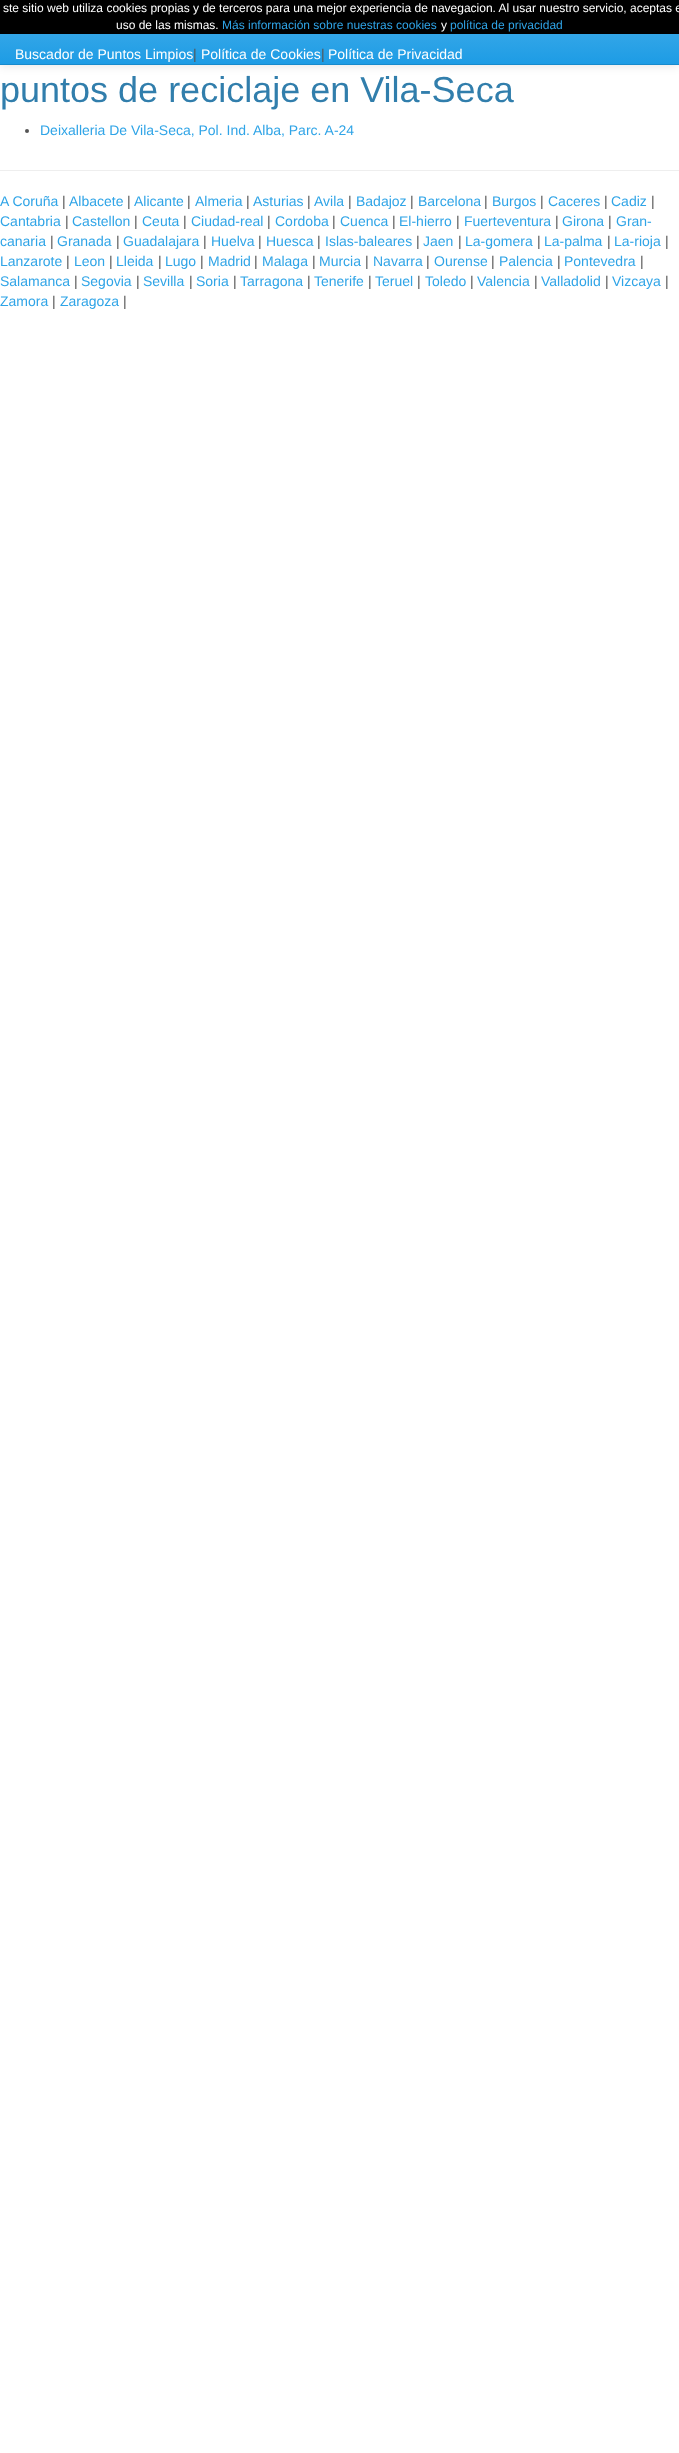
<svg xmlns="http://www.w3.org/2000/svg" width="679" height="2453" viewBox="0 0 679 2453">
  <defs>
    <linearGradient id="g1" gradientUnits="userSpaceOnUse" x1="340" y1="0" x2="340" y2="64"><stop offset="0" stop-color="rgb(84,180,235)"/><stop offset="0.6" stop-color="rgb(47,164,231)"/><stop offset="1" stop-color="rgb(29,156,229)"/></linearGradient>
  </defs>
  <rect width="100%" height="100%" fill="rgb(255,255,255)"/>
  <rect x="0" y="1" width="679" height="65" fill="rgba(0,0,0,0.1)" filter="blur(5px)"/>
  <rect x="0" y="34" width="679" height="30" fill="url(#g1)"/>
  <rect x="0" y="64" width="679" height="1" fill="rgb(23,138,204)"/>
  <rect x="0" y="0" width="679" height="34" fill="rgb(0,0,0)"/>
  <g font-family="Liberation Sans" font-size="12" fill="rgb(255,255,255)">
    <text x="3" y="12">ste sitio web utiliza cookies propias y de terceros para una mejor experiencia de navegacion. Al usar nuestro servicio, aceptas e</text>
    <text x="116" y="29">uso de las mismas.</text>
  </g>
  <text x="222" y="29" font-family="Liberation Sans" font-size="12" fill="rgb(47,164,231)">Más información sobre nuestras cookies</text>
  <text x="441" y="29" font-family="Liberation Sans" font-size="12" fill="rgb(255,255,255)">y</text>
  <text x="450" y="29" font-family="Liberation Sans" font-size="12" fill="rgb(47,164,231)">política de privacidad</text>
  <text x="15" y="59" font-family="Liberation Sans" font-size="14" fill="rgb(255,255,255)">Buscador de Puntos Limpios</text>
  <text x="193" y="59" font-family="Liberation Sans" font-size="14" fill="rgb(85,85,85)">|</text>
  <text x="201" y="59" font-family="Liberation Sans" font-size="14" fill="rgb(255,255,255)">Política de Cookies</text>
  <text x="321" y="59" font-family="Liberation Sans" font-size="14" fill="rgb(85,85,85)">|</text>
  <text x="328" y="59" font-family="Liberation Sans" font-size="14" fill="rgb(255,255,255)">Política de Privacidad</text>
  <text x="0" y="102" font-family="Liberation Sans" font-size="36" fill="rgb(49,126,172)">puntos de reciclaje en Vila-Seca</text>
  <circle cx="27" cy="131" r="2" fill="rgb(85,85,85)"/>
  <text x="40" y="135" font-family="Liberation Sans" font-size="14" fill="rgb(47,164,231)">Deixalleria De Vila-Seca, Pol. Ind. Alba, Parc. A-24</text>
  <rect x="0" y="170" width="679" height="1" fill="rgb(238,238,238)"/>
  <text x="0" y="206" font-family="Liberation Sans" font-size="14" fill="rgb(47,164,231)">A Coruña</text>
  <text x="62" y="206" font-family="Liberation Sans" font-size="14" fill="rgb(85,85,85)">|</text>
  <text x="69" y="206" font-family="Liberation Sans" font-size="14" fill="rgb(47,164,231)">Albacete</text>
  <text x="127" y="206" font-family="Liberation Sans" font-size="14" fill="rgb(85,85,85)">|</text>
  <text x="134" y="206" font-family="Liberation Sans" font-size="14" fill="rgb(47,164,231)">Alicante</text>
  <text x="187" y="206" font-family="Liberation Sans" font-size="14" fill="rgb(85,85,85)">|</text>
  <text x="195" y="206" font-family="Liberation Sans" font-size="14" fill="rgb(47,164,231)">Almeria</text>
  <text x="246" y="206" font-family="Liberation Sans" font-size="14" fill="rgb(85,85,85)">|</text>
  <text x="253" y="206" font-family="Liberation Sans" font-size="14" fill="rgb(47,164,231)">Asturias</text>
  <text x="307" y="206" font-family="Liberation Sans" font-size="14" fill="rgb(85,85,85)">|</text>
  <text x="314" y="206" font-family="Liberation Sans" font-size="14" fill="rgb(47,164,231)">Avila</text>
  <text x="348" y="206" font-family="Liberation Sans" font-size="14" fill="rgb(85,85,85)">|</text>
  <text x="356" y="206" font-family="Liberation Sans" font-size="14" fill="rgb(47,164,231)">Badajoz</text>
  <text x="410" y="206" font-family="Liberation Sans" font-size="14" fill="rgb(85,85,85)">|</text>
  <text x="418" y="206" font-family="Liberation Sans" font-size="14" fill="rgb(47,164,231)">Barcelona</text>
  <text x="484" y="206" font-family="Liberation Sans" font-size="14" fill="rgb(85,85,85)">|</text>
  <text x="492" y="206" font-family="Liberation Sans" font-size="14" fill="rgb(47,164,231)">Burgos</text>
  <text x="540" y="206" font-family="Liberation Sans" font-size="14" fill="rgb(85,85,85)">|</text>
  <text x="548" y="206" font-family="Liberation Sans" font-size="14" fill="rgb(47,164,231)">Caceres</text>
  <text x="604" y="206" font-family="Liberation Sans" font-size="14" fill="rgb(85,85,85)">|</text>
  <text x="611" y="206" font-family="Liberation Sans" font-size="14" fill="rgb(47,164,231)">Cadiz</text>
  <text x="651" y="206" font-family="Liberation Sans" font-size="14" fill="rgb(85,85,85)">|</text>
  <text x="0" y="226" font-family="Liberation Sans" font-size="14" fill="rgb(47,164,231)">Cantabria</text>
  <text x="65" y="226" font-family="Liberation Sans" font-size="14" fill="rgb(85,85,85)">|</text>
  <text x="72" y="226" font-family="Liberation Sans" font-size="14" fill="rgb(47,164,231)">Castellon</text>
  <text x="134" y="226" font-family="Liberation Sans" font-size="14" fill="rgb(85,85,85)">|</text>
  <text x="142" y="226" font-family="Liberation Sans" font-size="14" fill="rgb(47,164,231)">Ceuta</text>
  <text x="183" y="226" font-family="Liberation Sans" font-size="14" fill="rgb(85,85,85)">|</text>
  <text x="191" y="226" font-family="Liberation Sans" font-size="14" fill="rgb(47,164,231)">Ciudad-real</text>
  <text x="267" y="226" font-family="Liberation Sans" font-size="14" fill="rgb(85,85,85)">|</text>
  <text x="275" y="226" font-family="Liberation Sans" font-size="14" fill="rgb(47,164,231)">Cordoba</text>
  <text x="332" y="226" font-family="Liberation Sans" font-size="14" fill="rgb(85,85,85)">|</text>
  <text x="340" y="226" font-family="Liberation Sans" font-size="14" fill="rgb(47,164,231)">Cuenca</text>
  <text x="392" y="226" font-family="Liberation Sans" font-size="14" fill="rgb(85,85,85)">|</text>
  <text x="399" y="226" font-family="Liberation Sans" font-size="14" fill="rgb(47,164,231)">El-hierro</text>
  <text x="456" y="226" font-family="Liberation Sans" font-size="14" fill="rgb(85,85,85)">|</text>
  <text x="464" y="226" font-family="Liberation Sans" font-size="14" fill="rgb(47,164,231)">Fuerteventura</text>
  <text x="555" y="226" font-family="Liberation Sans" font-size="14" fill="rgb(85,85,85)">|</text>
  <text x="562" y="226" font-family="Liberation Sans" font-size="14" fill="rgb(47,164,231)">Girona</text>
  <text x="608" y="226" font-family="Liberation Sans" font-size="14" fill="rgb(85,85,85)">|</text>
  <g font-family="Liberation Sans" font-size="14" fill="rgb(47,164,231)">
    <text x="616" y="226">Gran-</text>
    <text x="0" y="246">canaria</text>
  </g>
  <text x="50" y="246" font-family="Liberation Sans" font-size="14" fill="rgb(85,85,85)">|</text>
  <text x="57" y="246" font-family="Liberation Sans" font-size="14" fill="rgb(47,164,231)">Granada</text>
  <text x="116" y="246" font-family="Liberation Sans" font-size="14" fill="rgb(85,85,85)">|</text>
  <text x="123" y="246" font-family="Liberation Sans" font-size="14" fill="rgb(47,164,231)">Guadalajara</text>
  <text x="203" y="246" font-family="Liberation Sans" font-size="14" fill="rgb(85,85,85)">|</text>
  <text x="211" y="246" font-family="Liberation Sans" font-size="14" fill="rgb(47,164,231)">Huelva</text>
  <text x="258" y="246" font-family="Liberation Sans" font-size="14" fill="rgb(85,85,85)">|</text>
  <text x="266" y="246" font-family="Liberation Sans" font-size="14" fill="rgb(47,164,231)">Huesca</text>
  <text x="317" y="246" font-family="Liberation Sans" font-size="14" fill="rgb(85,85,85)">|</text>
  <text x="325" y="246" font-family="Liberation Sans" font-size="14" fill="rgb(47,164,231)">Islas-baleares</text>
  <text x="416" y="246" font-family="Liberation Sans" font-size="14" fill="rgb(85,85,85)">|</text>
  <text x="423" y="246" font-family="Liberation Sans" font-size="14" fill="rgb(47,164,231)">Jaen</text>
  <text x="458" y="246" font-family="Liberation Sans" font-size="14" fill="rgb(85,85,85)">|</text>
  <text x="465" y="246" font-family="Liberation Sans" font-size="14" fill="rgb(47,164,231)">La-gomera</text>
  <text x="537" y="246" font-family="Liberation Sans" font-size="14" fill="rgb(85,85,85)">|</text>
  <text x="544" y="246" font-family="Liberation Sans" font-size="14" fill="rgb(47,164,231)">La-palma</text>
  <text x="607" y="246" font-family="Liberation Sans" font-size="14" fill="rgb(85,85,85)">|</text>
  <text x="614" y="246" font-family="Liberation Sans" font-size="14" fill="rgb(47,164,231)">La-rioja</text>
  <text x="665" y="246" font-family="Liberation Sans" font-size="14" fill="rgb(85,85,85)">|</text>
  <text x="0" y="266" font-family="Liberation Sans" font-size="14" fill="rgb(47,164,231)">Lanzarote</text>
  <text x="66" y="266" font-family="Liberation Sans" font-size="14" fill="rgb(85,85,85)">|</text>
  <text x="74" y="266" font-family="Liberation Sans" font-size="14" fill="rgb(47,164,231)">Leon</text>
  <text x="109" y="266" font-family="Liberation Sans" font-size="14" fill="rgb(85,85,85)">|</text>
  <text x="116" y="266" font-family="Liberation Sans" font-size="14" fill="rgb(47,164,231)">Lleida</text>
  <text x="158" y="266" font-family="Liberation Sans" font-size="14" fill="rgb(85,85,85)">|</text>
  <text x="165" y="266" font-family="Liberation Sans" font-size="14" fill="rgb(47,164,231)">Lugo</text>
  <text x="200" y="266" font-family="Liberation Sans" font-size="14" fill="rgb(85,85,85)">|</text>
  <text x="208" y="266" font-family="Liberation Sans" font-size="14" fill="rgb(47,164,231)">Madrid</text>
  <text x="254" y="266" font-family="Liberation Sans" font-size="14" fill="rgb(85,85,85)">|</text>
  <text x="262" y="266" font-family="Liberation Sans" font-size="14" fill="rgb(47,164,231)">Malaga</text>
  <text x="312" y="266" font-family="Liberation Sans" font-size="14" fill="rgb(85,85,85)">|</text>
  <text x="319" y="266" font-family="Liberation Sans" font-size="14" fill="rgb(47,164,231)">Murcia</text>
  <text x="365" y="266" font-family="Liberation Sans" font-size="14" fill="rgb(85,85,85)">|</text>
  <text x="373" y="266" font-family="Liberation Sans" font-size="14" fill="rgb(47,164,231)">Navarra</text>
  <text x="426" y="266" font-family="Liberation Sans" font-size="14" fill="rgb(85,85,85)">|</text>
  <text x="434" y="266" font-family="Liberation Sans" font-size="14" fill="rgb(47,164,231)">Ourense</text>
  <text x="491" y="266" font-family="Liberation Sans" font-size="14" fill="rgb(85,85,85)">|</text>
  <text x="499" y="266" font-family="Liberation Sans" font-size="14" fill="rgb(47,164,231)">Palencia</text>
  <text x="557" y="266" font-family="Liberation Sans" font-size="14" fill="rgb(85,85,85)">|</text>
  <text x="564" y="266" font-family="Liberation Sans" font-size="14" fill="rgb(47,164,231)">Pontevedra</text>
  <text x="640" y="266" font-family="Liberation Sans" font-size="14" fill="rgb(85,85,85)">|</text>
  <text x="0" y="286" font-family="Liberation Sans" font-size="14" fill="rgb(47,164,231)">Salamanca</text>
  <text x="74" y="286" font-family="Liberation Sans" font-size="14" fill="rgb(85,85,85)">|</text>
  <text x="81" y="286" font-family="Liberation Sans" font-size="14" fill="rgb(47,164,231)">Segovia</text>
  <text x="136" y="286" font-family="Liberation Sans" font-size="14" fill="rgb(85,85,85)">|</text>
  <text x="143" y="286" font-family="Liberation Sans" font-size="14" fill="rgb(47,164,231)">Sevilla</text>
  <text x="189" y="286" font-family="Liberation Sans" font-size="14" fill="rgb(85,85,85)">|</text>
  <text x="196" y="286" font-family="Liberation Sans" font-size="14" fill="rgb(47,164,231)">Soria</text>
  <text x="233" y="286" font-family="Liberation Sans" font-size="14" fill="rgb(85,85,85)">|</text>
  <text x="240" y="286" font-family="Liberation Sans" font-size="14" fill="rgb(47,164,231)">Tarragona</text>
  <text x="307" y="286" font-family="Liberation Sans" font-size="14" fill="rgb(85,85,85)">|</text>
  <text x="314" y="286" font-family="Liberation Sans" font-size="14" fill="rgb(47,164,231)">Tenerife</text>
  <text x="368" y="286" font-family="Liberation Sans" font-size="14" fill="rgb(85,85,85)">|</text>
  <text x="375" y="286" font-family="Liberation Sans" font-size="14" fill="rgb(47,164,231)">Teruel</text>
  <text x="417" y="286" font-family="Liberation Sans" font-size="14" fill="rgb(85,85,85)">|</text>
  <text x="425" y="286" font-family="Liberation Sans" font-size="14" fill="rgb(47,164,231)">Toledo</text>
  <text x="470" y="286" font-family="Liberation Sans" font-size="14" fill="rgb(85,85,85)">|</text>
  <text x="477" y="286" font-family="Liberation Sans" font-size="14" fill="rgb(47,164,231)">Valencia</text>
  <text x="534" y="286" font-family="Liberation Sans" font-size="14" fill="rgb(85,85,85)">|</text>
  <text x="541" y="286" font-family="Liberation Sans" font-size="14" fill="rgb(47,164,231)">Valladolid</text>
  <text x="605" y="286" font-family="Liberation Sans" font-size="14" fill="rgb(85,85,85)">|</text>
  <text x="612" y="286" font-family="Liberation Sans" font-size="14" fill="rgb(47,164,231)">Vizcaya</text>
  <text x="665" y="286" font-family="Liberation Sans" font-size="14" fill="rgb(85,85,85)">|</text>
  <text x="0" y="306" font-family="Liberation Sans" font-size="14" fill="rgb(47,164,231)">Zamora</text>
  <text x="52" y="306" font-family="Liberation Sans" font-size="14" fill="rgb(85,85,85)">|</text>
  <text x="60" y="306" font-family="Liberation Sans" font-size="14" fill="rgb(47,164,231)">Zaragoza</text>
  <text x="123" y="306" font-family="Liberation Sans" font-size="14" fill="rgb(85,85,85)">|</text>
</svg>
